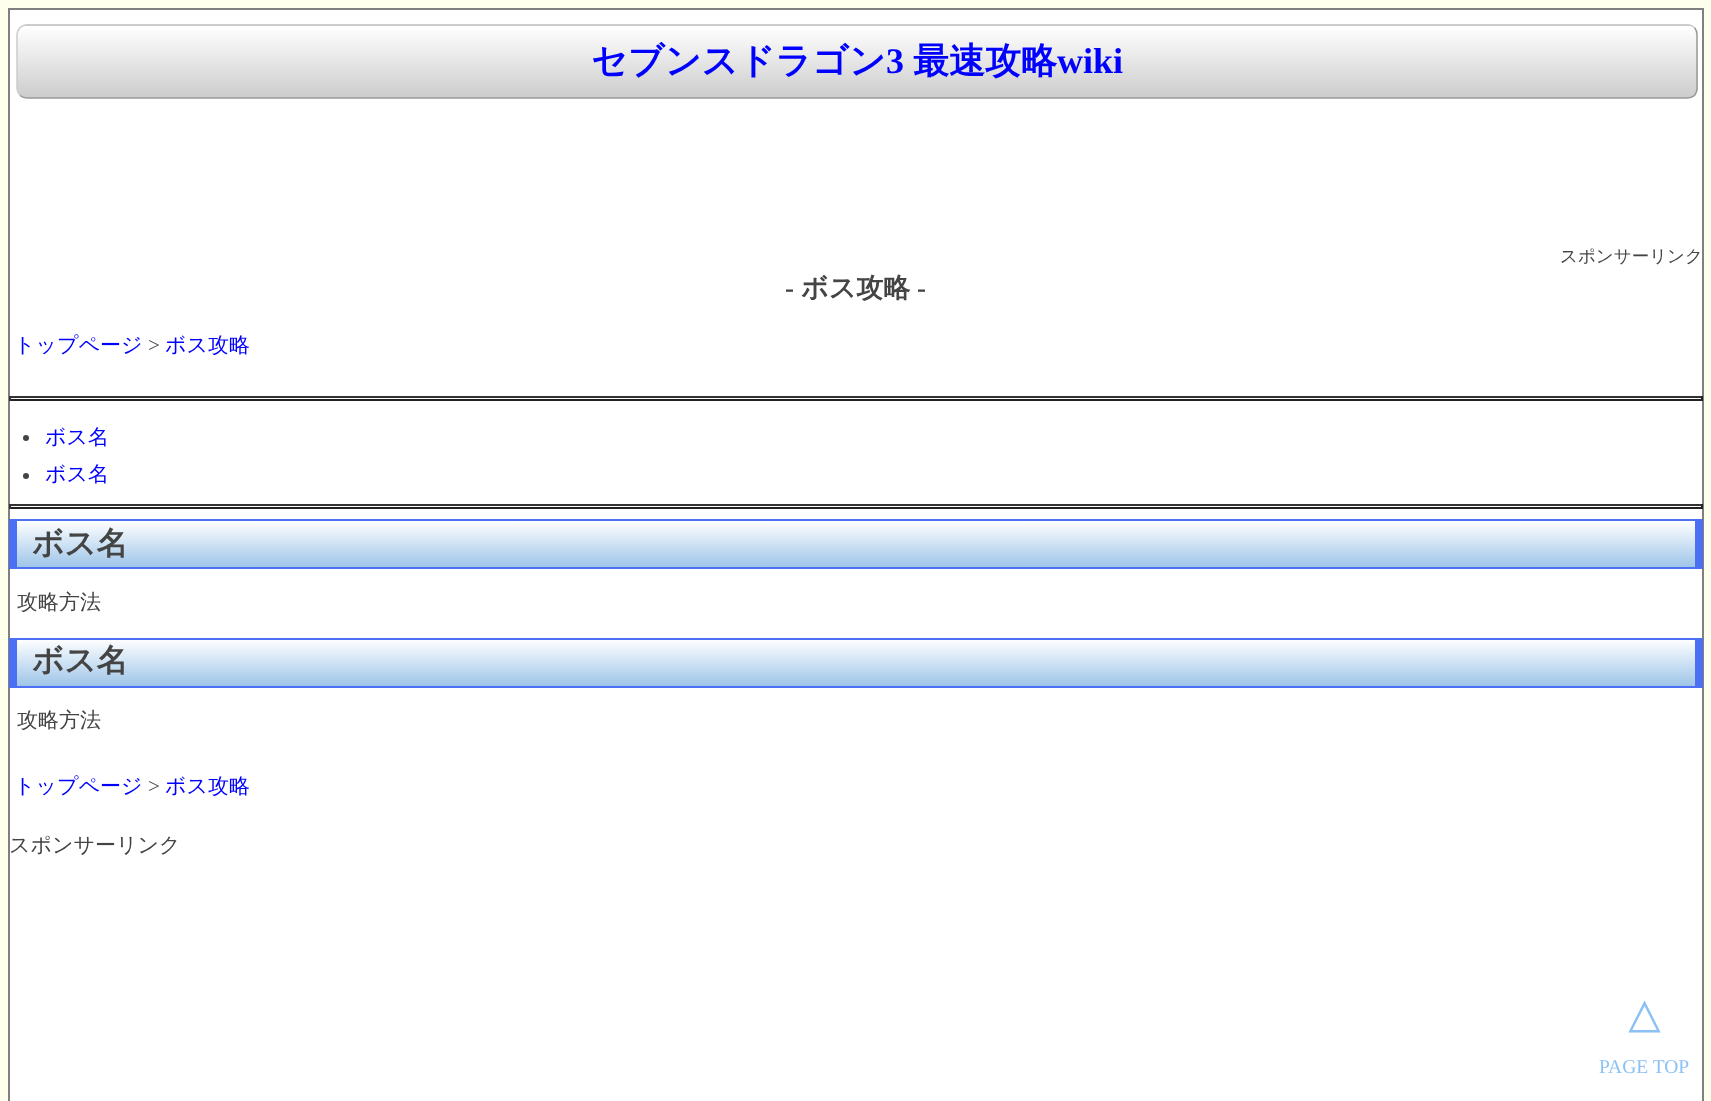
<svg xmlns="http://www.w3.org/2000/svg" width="1711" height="1101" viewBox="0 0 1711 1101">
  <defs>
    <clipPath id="clip1"><rect x="17" y="24" width="1681" height="75" rx="11"/></clipPath>
    <linearGradient id="g1" gradientUnits="userSpaceOnUse" x1="18" y1="-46" x2="18" y2="26"><stop offset="0" stop-color="rgb(255,255,255)"/><stop offset="1" stop-color="rgb(204,204,204)"/></linearGradient>
    <linearGradient id="g2" gradientUnits="userSpaceOnUse" x1="18" y1="26" x2="18" y2="98"><stop offset="0" stop-color="rgb(255,255,255)"/><stop offset="1" stop-color="rgb(204,204,204)"/></linearGradient>
    <linearGradient id="g3" gradientUnits="userSpaceOnUse" x1="17" y1="521" x2="17" y2="567"><stop offset="0" stop-color="rgb(255,255,255)"/><stop offset="1" stop-color="rgb(158,197,232)"/></linearGradient>
    <linearGradient id="g4" gradientUnits="userSpaceOnUse" x1="17" y1="639" x2="17" y2="686"><stop offset="0" stop-color="rgb(255,255,255)"/><stop offset="1" stop-color="rgb(158,197,232)"/></linearGradient>
  </defs>
  <rect width="100%" height="100%" fill="rgb(255,255,238)"/>
  <rect x="9" y="9" width="1694" height="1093" fill="rgb(255,255,255)" stroke="rgb(128,128,128)" stroke-width="2"/>
  <g clip-path="url(#clip1)">
    <rect x="17" y="24" width="1681" height="2" fill="url(#g1)"/>
    <rect x="17" y="26" width="1681" height="72" fill="url(#g2)"/>
  </g>
  <path d="M1694.5 27.5C1696 29.5 1697 32 1697 34.5V88.5C1697 91 1696 93.5 1694.5 95.5C1692.5 97 1690 98 1687.5 98H27C24.5 98 22 97 20 95.5" fill="none" stroke="rgb(153,153,153)" stroke-width="1.5"/>
  <path d="M20 95.5C18.5 93.5 17 91 17 88.5V34.5C17 32 18.5 29.5 20 27.5C22 26 24.5 25 27 25H1687.5C1690 25 1692.5 26 1694.5 27.5" fill="none" stroke="rgb(204,204,204)" stroke-width="1.5"/>
  <text x="591" y="73" font-family="WenQuanYi Zen Hei" font-size="36" font-weight="bold" fill="rgb(0,0,255)">セブンスドラゴン</text>
  <text x="886" y="73" font-family="Liberation Serif" font-size="36" font-weight="bold" fill="rgb(0,0,255)">3</text>
  <text x="913" y="73" font-family="WenQuanYi Zen Hei" font-size="36" font-weight="bold" fill="rgb(0,0,255)">最速攻略</text>
  <text x="1057" y="73" font-family="Liberation Serif" font-size="36" font-weight="bold" fill="rgb(0,0,255)">wiki</text>
  <text x="1560" y="262" font-family="WenQuanYi Zen Hei" font-size="17.5" font-weight="500" fill="rgb(68,68,68)">スポンサーリンク</text>
  <text x="785" y="297" font-family="Liberation Serif" font-size="27" font-weight="bold" fill="rgb(68,68,68)">-</text>
  <text x="801" y="297" font-family="WenQuanYi Zen Hei" font-size="27" font-weight="bold" fill="rgb(68,68,68)">ボス攻略</text>
  <text x="917" y="297" font-family="Liberation Serif" font-size="27" font-weight="bold" fill="rgb(68,68,68)">-</text>
  <text x="14" y="352" font-family="WenQuanYi Zen Hei" font-size="21" font-weight="500" fill="rgb(0,0,255)">トップページ</text>
  <text x="148" y="352" font-family="Liberation Serif" font-size="21" fill="rgb(68,68,68)">&gt;</text>
  <text x="165" y="352" font-family="WenQuanYi Zen Hei" font-size="21" font-weight="500" fill="rgb(0,0,255)">ボス攻略</text>
  <rect x="9" y="396" width="1694" height="2" fill="rgb(51,51,51)"/>
  <rect x="1701" y="396" width="2" height="5" fill="rgb(34,34,34)"/>
  <rect x="9" y="399" width="1694" height="2" fill="rgb(34,34,34)"/>
  <rect x="9" y="396" width="2" height="5" fill="rgb(51,51,51)"/>
  <circle cx="26" cy="438" r="3" fill="rgb(68,68,68)"/>
  <text x="45" y="444" font-family="WenQuanYi Zen Hei" font-size="21" font-weight="500" fill="rgb(0,0,255)">ボス名</text>
  <circle cx="26" cy="476" r="3" fill="rgb(68,68,68)"/>
  <text x="45" y="481" font-family="WenQuanYi Zen Hei" font-size="21" font-weight="500" fill="rgb(0,0,255)">ボス名</text>
  <rect x="9" y="504" width="1694" height="2" fill="rgb(51,51,51)"/>
  <rect x="1701" y="504" width="2" height="5" fill="rgb(34,34,34)"/>
  <rect x="9" y="507" width="1694" height="2" fill="rgb(34,34,34)"/>
  <rect x="9" y="504" width="2" height="5" fill="rgb(51,51,51)"/>
  <rect x="17" y="522" width="1678" height="45" fill="url(#g3)"/>
  <rect x="9" y="519" width="1694" height="2" fill="rgb(76,112,243)"/>
  <rect x="1695" y="519" width="8" height="50" fill="rgb(76,112,243)"/>
  <rect x="9" y="567" width="1694" height="2" fill="rgb(76,112,243)"/>
  <rect x="9" y="519" width="8" height="50" fill="rgb(76,112,243)"/>
  <text x="32" y="554" font-family="WenQuanYi Zen Hei" font-size="31.5" font-weight="bold" fill="rgb(68,68,68)">ボス名</text>
  <text x="17" y="609" font-family="WenQuanYi Zen Hei" font-size="21" font-weight="500" fill="rgb(68,68,68)">攻略方法</text>
  <rect x="17" y="640" width="1678" height="46" fill="url(#g4)"/>
  <rect x="9" y="638" width="1694" height="2" fill="rgb(76,112,243)"/>
  <rect x="1695" y="638" width="8" height="49" fill="rgb(76,112,243)"/>
  <rect x="9" y="686" width="1694" height="2" fill="rgb(76,112,243)"/>
  <rect x="9" y="638" width="8" height="49" fill="rgb(76,112,243)"/>
  <text x="32" y="671" font-family="WenQuanYi Zen Hei" font-size="31.5" font-weight="bold" fill="rgb(68,68,68)">ボス名</text>
  <text x="17" y="727" font-family="WenQuanYi Zen Hei" font-size="21" font-weight="500" fill="rgb(68,68,68)">攻略方法</text>
  <text x="14" y="793" font-family="WenQuanYi Zen Hei" font-size="21" font-weight="500" fill="rgb(0,0,255)">トップページ</text>
  <text x="148" y="793" font-family="Liberation Serif" font-size="21" fill="rgb(68,68,68)">&gt;</text>
  <text x="165" y="793" font-family="WenQuanYi Zen Hei" font-size="21" font-weight="500" fill="rgb(0,0,255)">ボス攻略</text>
  <text x="9" y="852" font-family="WenQuanYi Zen Hei" font-size="21" font-weight="500" fill="rgb(68,68,68)">スポンサーリンク</text>
  <text x="1625" y="1031" font-family="WenQuanYi Zen Hei" font-size="38" font-weight="bold" fill="rgb(140,193,245)">△</text>
  <text x="1599" y="1073" font-family="Liberation Serif" font-size="19.5" fill="rgb(140,193,245)">PAGE TOP</text>
</svg>
